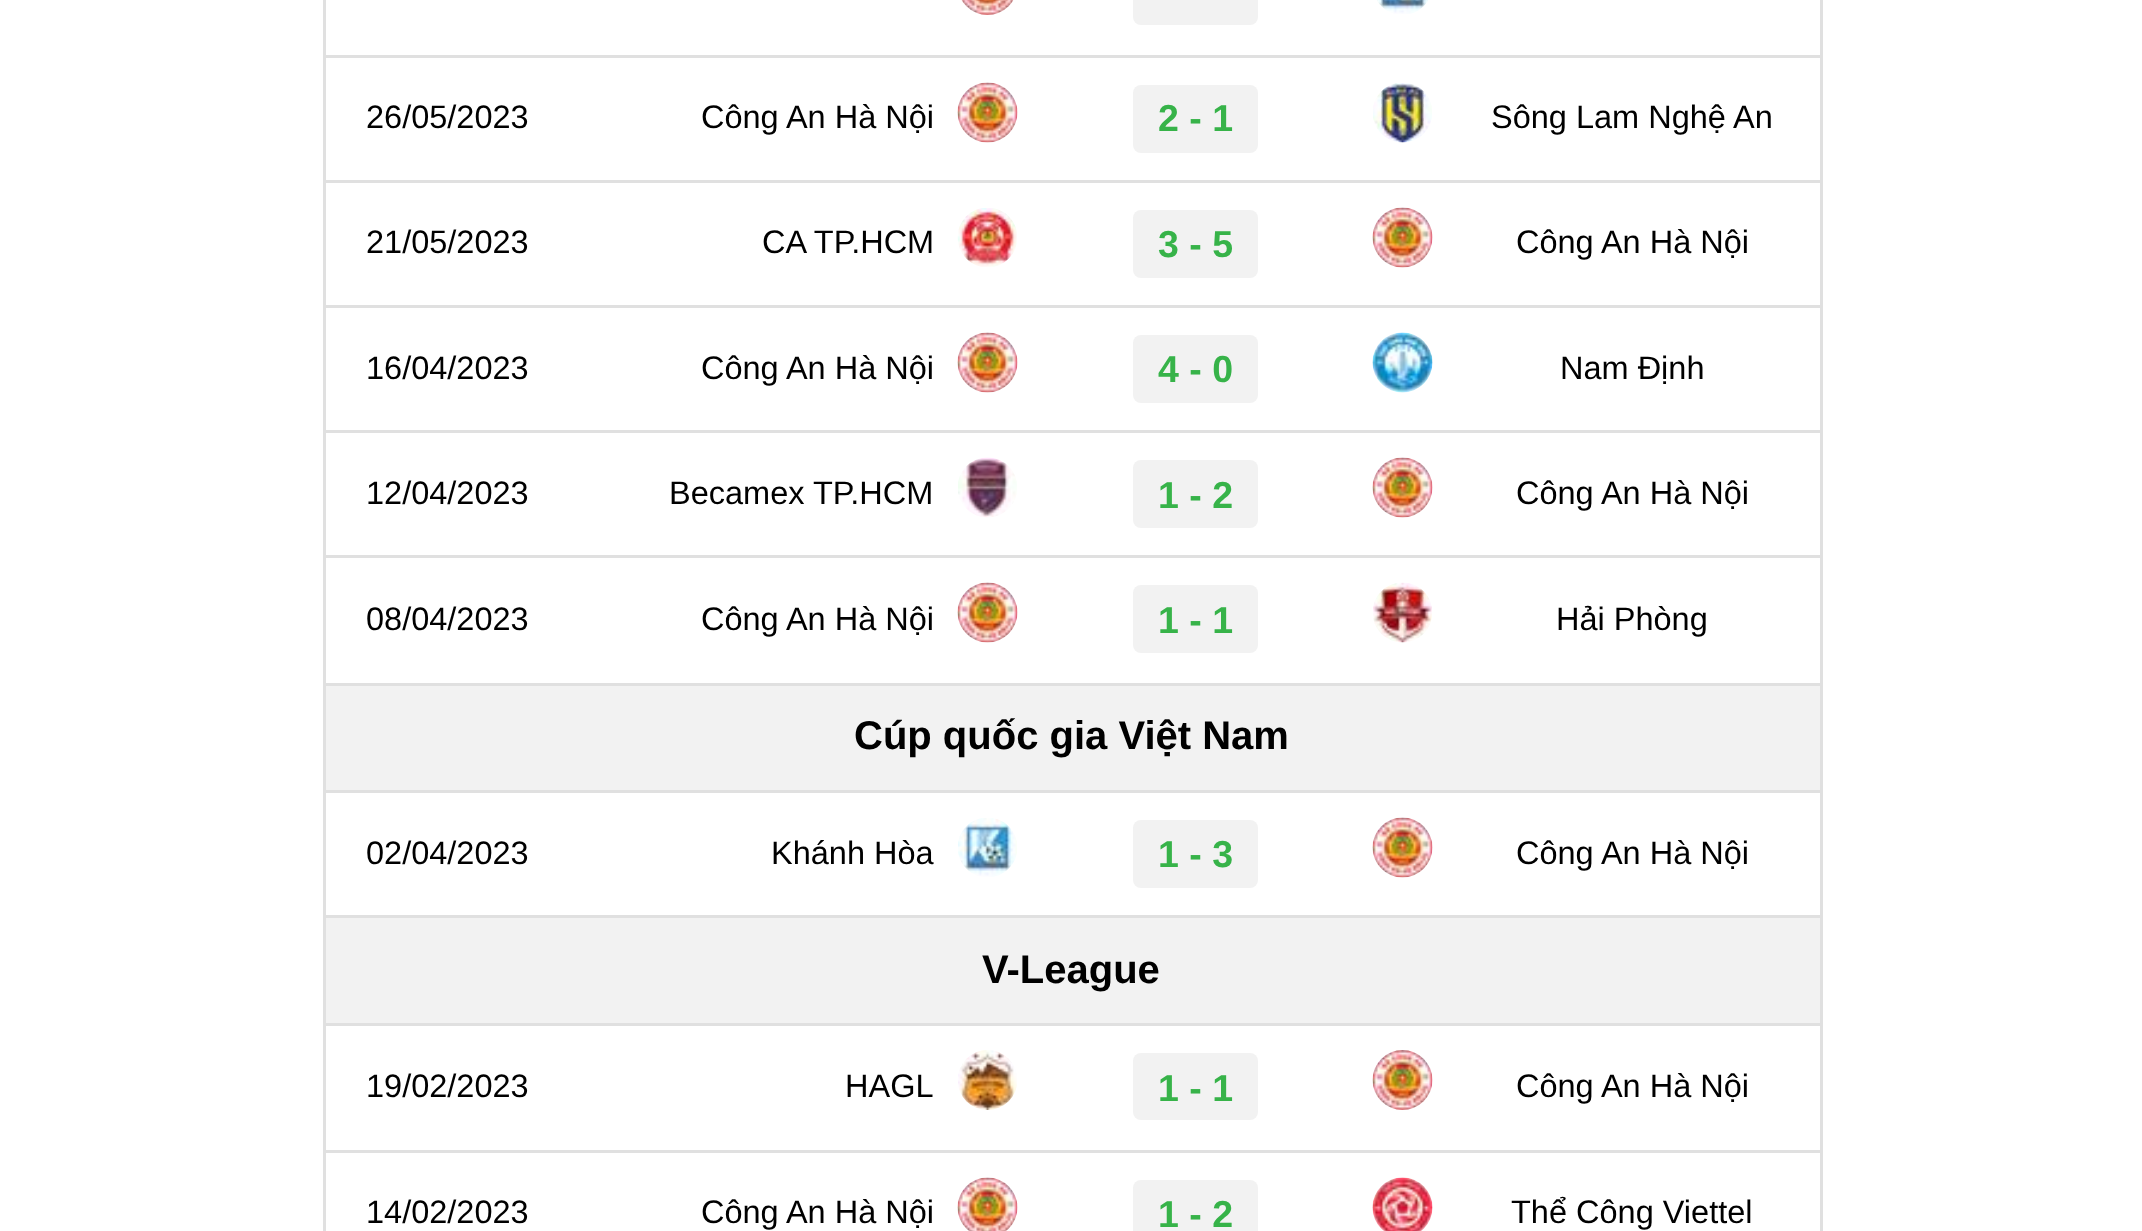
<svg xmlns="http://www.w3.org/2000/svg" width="2142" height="1231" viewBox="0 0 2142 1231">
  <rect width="100%" height="100%" fill="rgb(255,255,255)"/>
  <rect x="1820" y="0" width="3" height="1231" fill="rgb(224,224,224)"/>
  <rect x="323" y="0" width="3" height="1231" fill="rgb(224,224,224)"/>
  <rect x="323" y="55" width="1500" height="3" fill="rgb(224,224,224)"/>
  <image x="961" y="0" width="53" height="15" href="pic1.png"/>
  <rect x="1133" y="-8" width="125" height="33" rx="8" fill="rgb(242,242,242)"/>
  <image x="1377" y="0" width="51" height="14" href="pic2.png"/>
  <rect x="323" y="180" width="1500" height="3" fill="rgb(224,224,224)"/>
  <g font-family="Liberation Sans" font-size="32.5" fill="rgb(0,0,0)">
    <text x="366" y="128">26/05/2023</text>
    <text x="701" y="128">Công An Hà Nội</text>
  </g>
  <image x="957" y="82" width="61" height="61" href="pic3.png"/>
  <rect x="1133" y="85" width="125" height="68" rx="8" fill="rgb(242,242,242)"/>
  <text x="1158" y="131" font-family="Liberation Sans" font-size="37.5" font-weight="bold" fill="rgb(55,179,73)">2 - 1</text>
  <image x="1373" y="83" width="59" height="60" href="pic4.png"/>
  <text x="1491" y="128" font-family="Liberation Sans" font-size="32.5" fill="rgb(0,0,0)">Sông Lam Nghệ An</text>
  <rect x="323" y="305" width="1500" height="3" fill="rgb(224,224,224)"/>
  <g font-family="Liberation Sans" font-size="32.5" fill="rgb(0,0,0)">
    <text x="366" y="253">21/05/2023</text>
    <text x="762" y="253">CA TP.HCM</text>
  </g>
  <image x="957" y="208" width="60" height="59" href="pic5.png"/>
  <rect x="1133" y="210" width="125" height="68" rx="8" fill="rgb(242,242,242)"/>
  <text x="1158" y="257" font-family="Liberation Sans" font-size="37.5" font-weight="bold" fill="rgb(55,179,73)">3 - 5</text>
  <image x="1372" y="207" width="61" height="61" href="pic6.png"/>
  <text x="1516" y="253" font-family="Liberation Sans" font-size="32.5" fill="rgb(0,0,0)">Công An Hà Nội</text>
  <rect x="323" y="430" width="1500" height="3" fill="rgb(224,224,224)"/>
  <g font-family="Liberation Sans" font-size="32.5" fill="rgb(0,0,0)">
    <text x="366" y="379">16/04/2023</text>
    <text x="701" y="379">Công An Hà Nội</text>
  </g>
  <image x="957" y="332" width="61" height="61" href="pic7.png"/>
  <rect x="1133" y="335" width="125" height="68" rx="8" fill="rgb(242,242,242)"/>
  <text x="1158" y="382" font-family="Liberation Sans" font-size="37.5" font-weight="bold" fill="rgb(55,179,73)">4 - 0</text>
  <image x="1372" y="332" width="61" height="61" href="pic8.png"/>
  <text x="1560" y="379" font-family="Liberation Sans" font-size="32.5" fill="rgb(0,0,0)">Nam Định</text>
  <rect x="323" y="555" width="1500" height="3" fill="rgb(224,224,224)"/>
  <g font-family="Liberation Sans" font-size="32.5" fill="rgb(0,0,0)">
    <text x="366" y="504">12/04/2023</text>
    <text x="669" y="504">Becamex TP.HCM</text>
  </g>
  <image x="958" y="457" width="59" height="61" href="pic9.png"/>
  <rect x="1133" y="460" width="125" height="68" rx="8" fill="rgb(242,242,242)"/>
  <text x="1158" y="508" font-family="Liberation Sans" font-size="37.5" font-weight="bold" fill="rgb(55,179,73)">1 - 2</text>
  <image x="1372" y="457" width="61" height="61" href="pic10.png"/>
  <text x="1516" y="504" font-family="Liberation Sans" font-size="32.5" fill="rgb(0,0,0)">Công An Hà Nội</text>
  <rect x="323" y="683" width="1500" height="3" fill="rgb(224,224,224)"/>
  <g font-family="Liberation Sans" font-size="32.5" fill="rgb(0,0,0)">
    <text x="366" y="630">08/04/2023</text>
    <text x="701" y="630">Công An Hà Nội</text>
  </g>
  <image x="957" y="582" width="61" height="61" href="pic7.png"/>
  <rect x="1133" y="585" width="125" height="68" rx="8" fill="rgb(242,242,242)"/>
  <text x="1158" y="633" font-family="Liberation Sans" font-size="37.5" font-weight="bold" fill="rgb(55,179,73)">1 - 1</text>
  <image x="1373" y="582" width="59" height="61" href="pic11.png"/>
  <text x="1556" y="630" font-family="Liberation Sans" font-size="32.5" fill="rgb(0,0,0)">Hải Phòng</text>
  <rect x="326" y="686" width="1494" height="104" fill="rgb(242,242,242)"/>
  <rect x="323" y="790" width="1500" height="3" fill="rgb(224,224,224)"/>
  <text x="854" y="749" font-family="Liberation Sans" font-size="40" font-weight="bold" fill="rgb(0,0,0)">Cúp quốc gia Việt Nam</text>
  <rect x="323" y="915" width="1500" height="3" fill="rgb(224,224,224)"/>
  <g font-family="Liberation Sans" font-size="32.5" fill="rgb(0,0,0)">
    <text x="366" y="864">02/04/2023</text>
    <text x="771" y="864">Khánh Hòa</text>
  </g>
  <image x="958" y="818" width="59" height="59" href="pic12.png"/>
  <rect x="1133" y="820" width="125" height="68" rx="8" fill="rgb(242,242,242)"/>
  <text x="1158" y="867" font-family="Liberation Sans" font-size="37.5" font-weight="bold" fill="rgb(55,179,73)">1 - 3</text>
  <image x="1372" y="817" width="61" height="61" href="pic13.png"/>
  <text x="1516" y="864" font-family="Liberation Sans" font-size="32.5" fill="rgb(0,0,0)">Công An Hà Nội</text>
  <rect x="326" y="918" width="1494" height="105" fill="rgb(242,242,242)"/>
  <rect x="323" y="1023" width="1500" height="3" fill="rgb(224,224,224)"/>
  <text x="982" y="983" font-family="Liberation Sans" font-size="40" font-weight="bold" fill="rgb(0,0,0)">V-League</text>
  <rect x="323" y="1150" width="1500" height="3" fill="rgb(224,224,224)"/>
  <g font-family="Liberation Sans" font-size="32.5" fill="rgb(0,0,0)">
    <text x="366" y="1097">19/02/2023</text>
    <text x="845" y="1097">HAGL</text>
  </g>
  <image x="958" y="1050" width="59" height="60" href="pic14.png"/>
  <rect x="1133" y="1053" width="125" height="67" rx="8" fill="rgb(242,242,242)"/>
  <text x="1158" y="1101" font-family="Liberation Sans" font-size="37.5" font-weight="bold" fill="rgb(55,179,73)">1 - 1</text>
  <image x="1372" y="1050" width="61" height="60" href="pic15.png"/>
  <g font-family="Liberation Sans" font-size="32.5" fill="rgb(0,0,0)">
    <text x="1516" y="1097">Công An Hà Nội</text>
    <text x="366" y="1223">14/02/2023</text>
    <text x="701" y="1223">Công An Hà Nội</text>
  </g>
  <image x="957" y="1177" width="61" height="54" href="pic16.png"/>
  <rect x="1133" y="1180" width="125" height="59" rx="8" fill="rgb(242,242,242)"/>
  <text x="1158" y="1227" font-family="Liberation Sans" font-size="37.5" font-weight="bold" fill="rgb(55,179,73)">1 - 2</text>
  <image x="1372" y="1177" width="61" height="54" href="pic17.png"/>
  <text x="1511" y="1223" font-family="Liberation Sans" font-size="32.5" fill="rgb(0,0,0)">Thể Công Viettel</text>
</svg>
